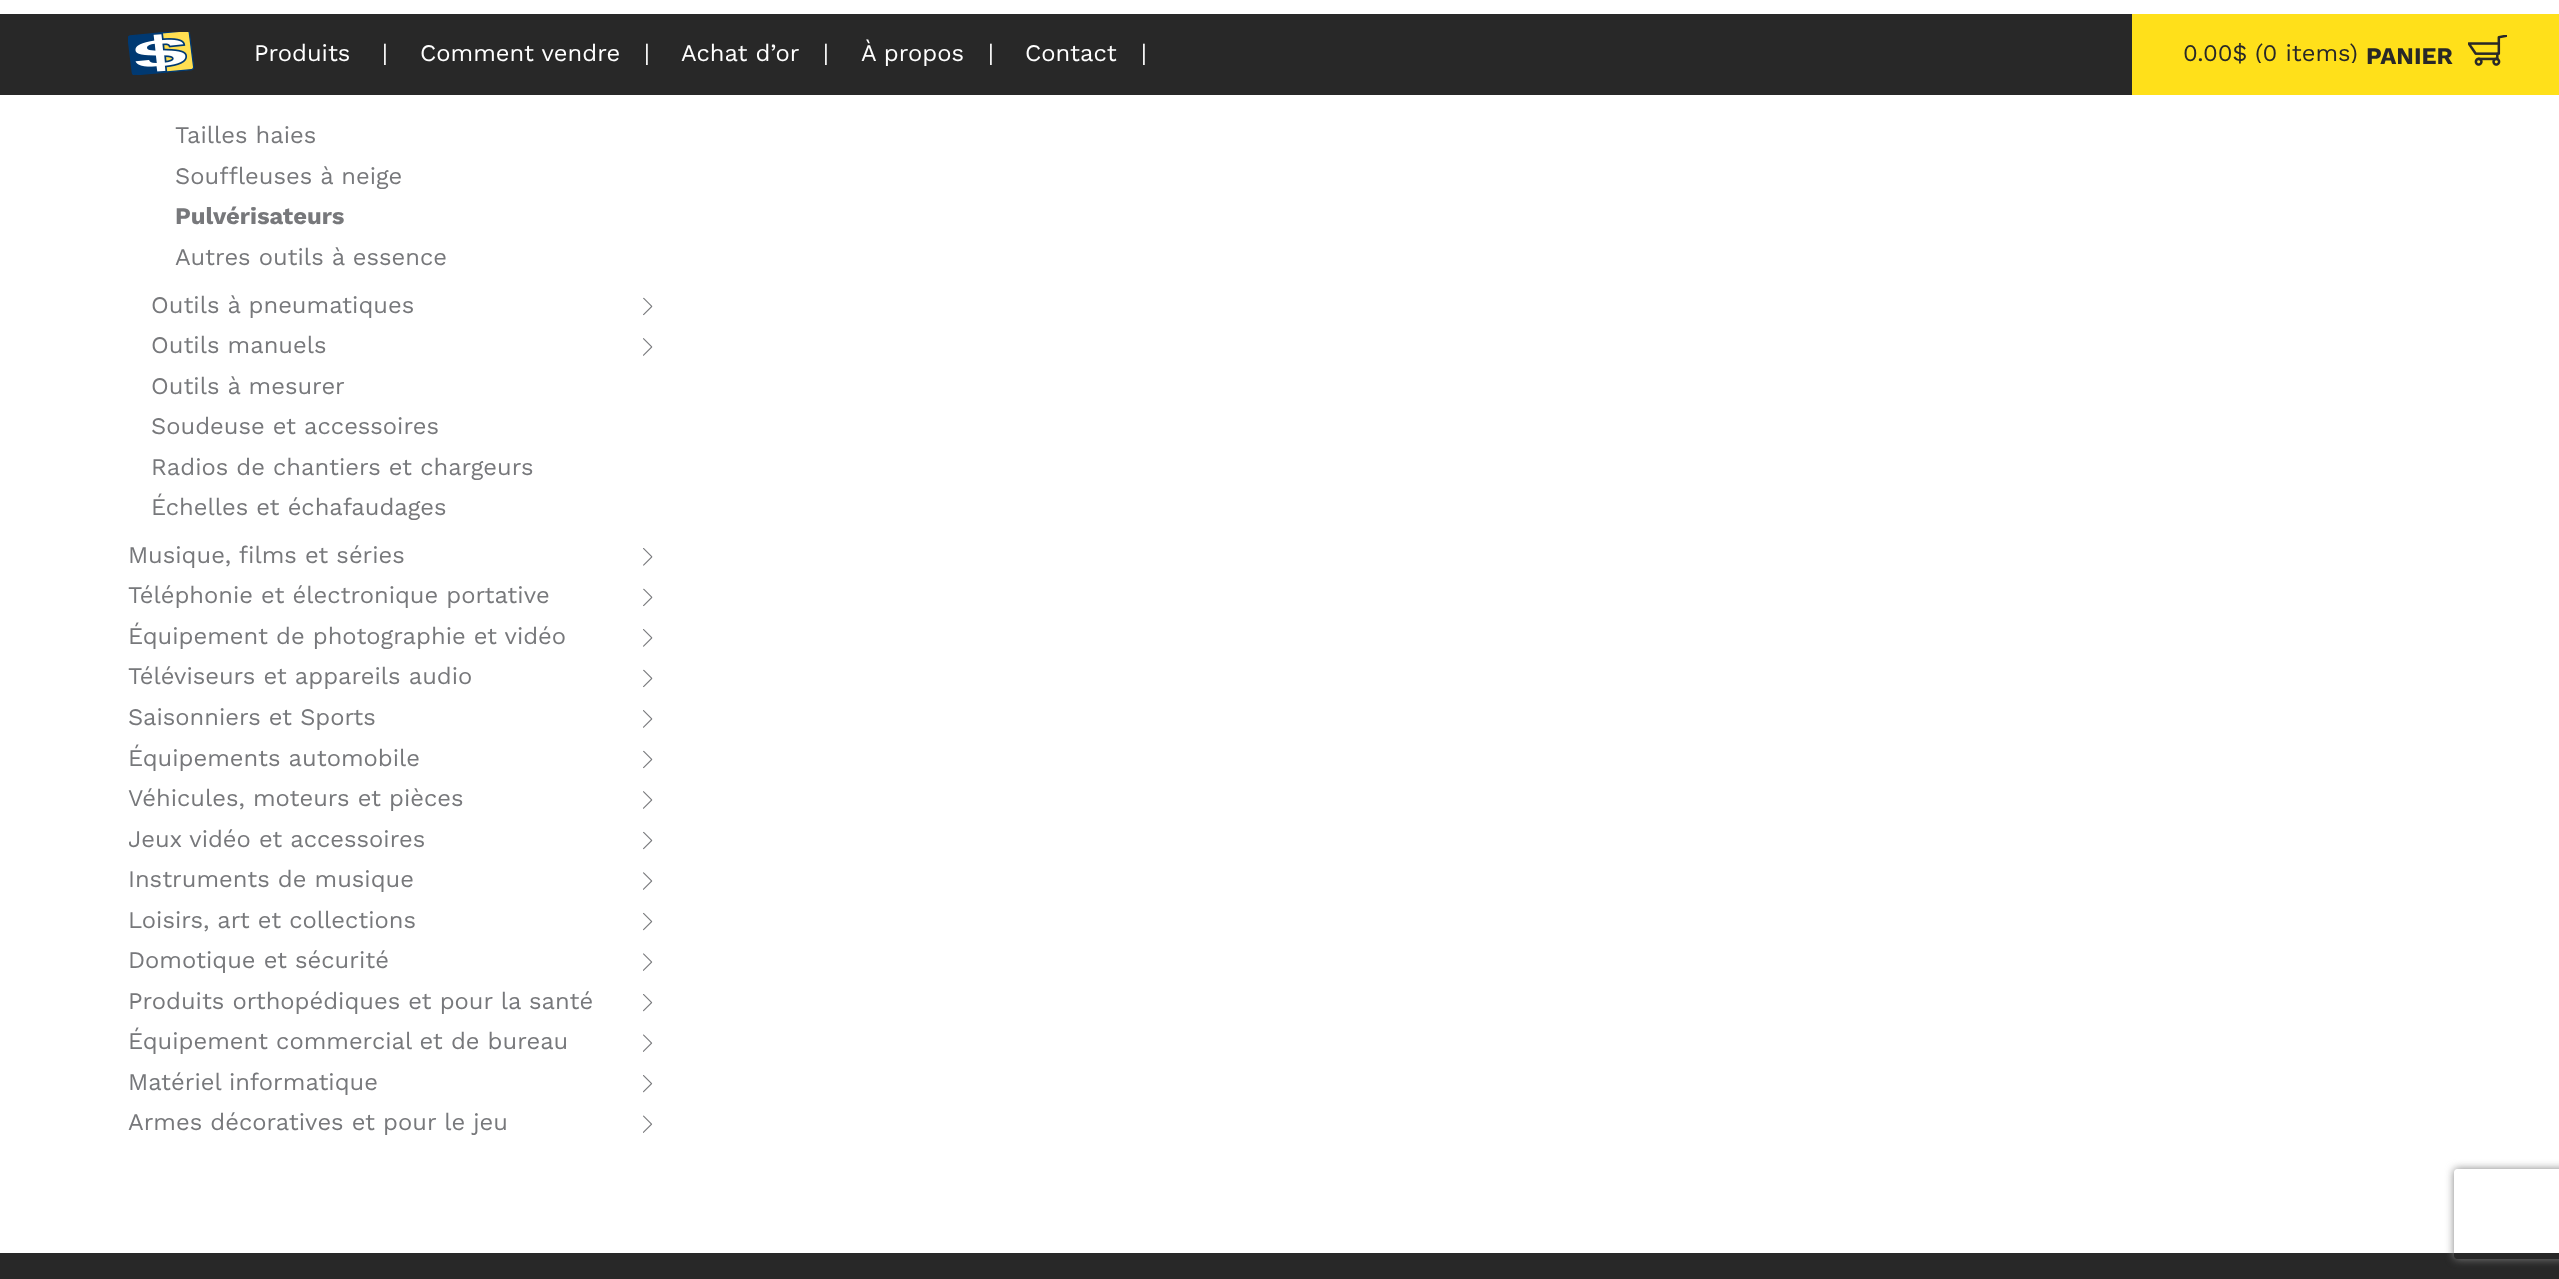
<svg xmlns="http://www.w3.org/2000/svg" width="2559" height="1279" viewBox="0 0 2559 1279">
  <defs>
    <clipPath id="clip1"><rect x="2183" y="38" width="175" height="25"/></clipPath>
    <clipPath id="clip2"><path d="M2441 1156H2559V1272H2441ZM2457 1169H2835C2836.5 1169 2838 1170.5 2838 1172V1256C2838 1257.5 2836.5 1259 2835 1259H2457C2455.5 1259 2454 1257.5 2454 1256V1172C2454 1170.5 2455.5 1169 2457 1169Z" clip-rule="evenodd"/></clipPath>
  </defs>
  <rect width="100%" height="100%" fill="rgb(255,255,255)"/>
  <rect x="0" y="14" width="2132" height="81" fill="rgb(40,40,40)"/>
  <image x="128" y="32" width="67" height="43" href="pic1.png"/>
  <g font-family="Work Sans" font-size="23.75" fill="rgb(255,255,255)">
    <text x="254" y="61">Produits</text>
    <text x="382" y="61">|</text>
    <text x="420" y="61">Comment vendre</text>
    <text x="644" y="61">|</text>
    <text x="681" y="61">Achat d’or</text>
    <text x="823" y="61">|</text>
    <text x="861" y="61">À propos</text>
    <text x="988" y="61">|</text>
    <text x="1025" y="61">Contact</text>
    <text x="1141" y="61">|</text>
  </g>
  <rect x="2132" y="14" width="427" height="81" fill="rgb(255,224,26)"/>
  <text x="2183" y="61" font-family="Work Sans" font-size="23.75" fill="rgb(40,40,40)">0.00$</text>
  <g clip-path="url(#clip1)">
    <text x="2255" y="61" font-family="Work Sans" font-size="23.75" fill="rgb(40,40,40)">(0 items)</text>
  </g>
  <text x="2366" y="64" font-family="Work Sans" font-size="23.75" font-weight="bold" fill="rgb(40,40,40)">PANIER</text>
  <image x="2468" y="35" width="39" height="31" href="pic2.png"/>
  <g font-family="Work Sans" font-size="23.75" fill="rgb(119,120,123)">
    <text>
      <tspan x="175" y="143">Tailles haies</tspan>
      <tspan x="175" y="184">Souffleuses à neige</tspan>
    </text>
  </g>
  <text x="175" y="224" font-family="Work Sans" font-size="23.75" font-weight="bold" fill="rgb(119,120,123)">Pulvérisateurs</text>
  <g font-family="Work Sans" font-size="23.75" fill="rgb(119,120,123)">
    <text x="175" y="265">Autres outils à essence</text>
    <text x="151" y="313">Outils à pneumatiques</text>
  </g>
  <image x="643" y="297" width="10" height="19" href="pic3.png"/>
  <text x="151" y="353" font-family="Work Sans" font-size="23.75" fill="rgb(119,120,123)">Outils manuels</text>
  <image x="643" y="338" width="10" height="18" href="pic4.png"/>
  <g font-family="Work Sans" font-size="23.75" fill="rgb(119,120,123)">
    <text>
      <tspan x="151" y="394">Outils à mesurer</tspan>
      <tspan x="151" y="434">Soudeuse et accessoires</tspan>
      <tspan x="151" y="475">Radios de chantiers et chargeurs</tspan>
      <tspan x="151" y="515">Échelles et échafaudages</tspan>
    </text>
    <text x="128" y="563">Musique, films et séries</text>
  </g>
  <image x="643" y="548" width="10" height="18" href="pic5.png"/>
  <text x="128" y="603" font-family="Work Sans" font-size="23.75" fill="rgb(119,120,123)">Téléphonie et électronique portative</text>
  <image x="643" y="588" width="10" height="19" href="pic6.png"/>
  <text x="128" y="644" font-family="Work Sans" font-size="23.75" fill="rgb(119,120,123)">Équipement de photographie et vidéo</text>
  <image x="643" y="629" width="10" height="18" href="pic7.png"/>
  <text x="128" y="684" font-family="Work Sans" font-size="23.75" fill="rgb(119,120,123)">Téléviseurs et appareils audio</text>
  <image x="643" y="669" width="10" height="19" href="pic8.png"/>
  <text x="128" y="725" font-family="Work Sans" font-size="23.75" fill="rgb(119,120,123)">Saisonniers et Sports</text>
  <image x="643" y="710" width="10" height="18" href="pic9.png"/>
  <text x="128" y="766" font-family="Work Sans" font-size="23.75" fill="rgb(119,120,123)">Équipements automobile</text>
  <image x="643" y="750" width="10" height="19" href="pic10.png"/>
  <text x="128" y="806" font-family="Work Sans" font-size="23.75" fill="rgb(119,120,123)">Véhicules, moteurs et pièces</text>
  <image x="643" y="791" width="10" height="18" href="pic11.png"/>
  <text x="128" y="847" font-family="Work Sans" font-size="23.75" fill="rgb(119,120,123)">Jeux vidéo et accessoires</text>
  <image x="643" y="831" width="10" height="19" href="pic12.png"/>
  <text x="128" y="887" font-family="Work Sans" font-size="23.75" fill="rgb(119,120,123)">Instruments de musique</text>
  <image x="643" y="872" width="10" height="18" href="pic13.png"/>
  <text x="128" y="928" font-family="Work Sans" font-size="23.75" fill="rgb(119,120,123)">Loisirs, art et collections</text>
  <image x="643" y="912" width="10" height="19" href="pic14.png"/>
  <text x="128" y="968" font-family="Work Sans" font-size="23.75" fill="rgb(119,120,123)">Domotique et sécurité</text>
  <image x="643" y="953" width="10" height="18" href="pic15.png"/>
  <text x="128" y="1009" font-family="Work Sans" font-size="23.75" fill="rgb(119,120,123)">Produits orthopédiques et pour la santé</text>
  <image x="643" y="994" width="10" height="18" href="pic16.png"/>
  <text x="128" y="1049" font-family="Work Sans" font-size="23.75" fill="rgb(119,120,123)">Équipement commercial et de bureau</text>
  <image x="643" y="1034" width="10" height="18" href="pic17.png"/>
  <text x="128" y="1090" font-family="Work Sans" font-size="23.75" fill="rgb(119,120,123)">Matériel informatique</text>
  <image x="643" y="1075" width="10" height="18" href="pic18.png"/>
  <text x="128" y="1130" font-family="Work Sans" font-size="23.75" fill="rgb(119,120,123)">Armes décoratives et pour le jeu</text>
  <image x="643" y="1115" width="10" height="18" href="pic19.png"/>
  <rect x="0" y="1253" width="2559" height="26" fill="rgb(40,40,40)"/>
  <g clip-path="url(#clip2)">
    <rect x="2454" y="1169" width="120" height="90" rx="3" fill="rgb(128,128,128)" filter="blur(4px)"/>
  </g>
</svg>
